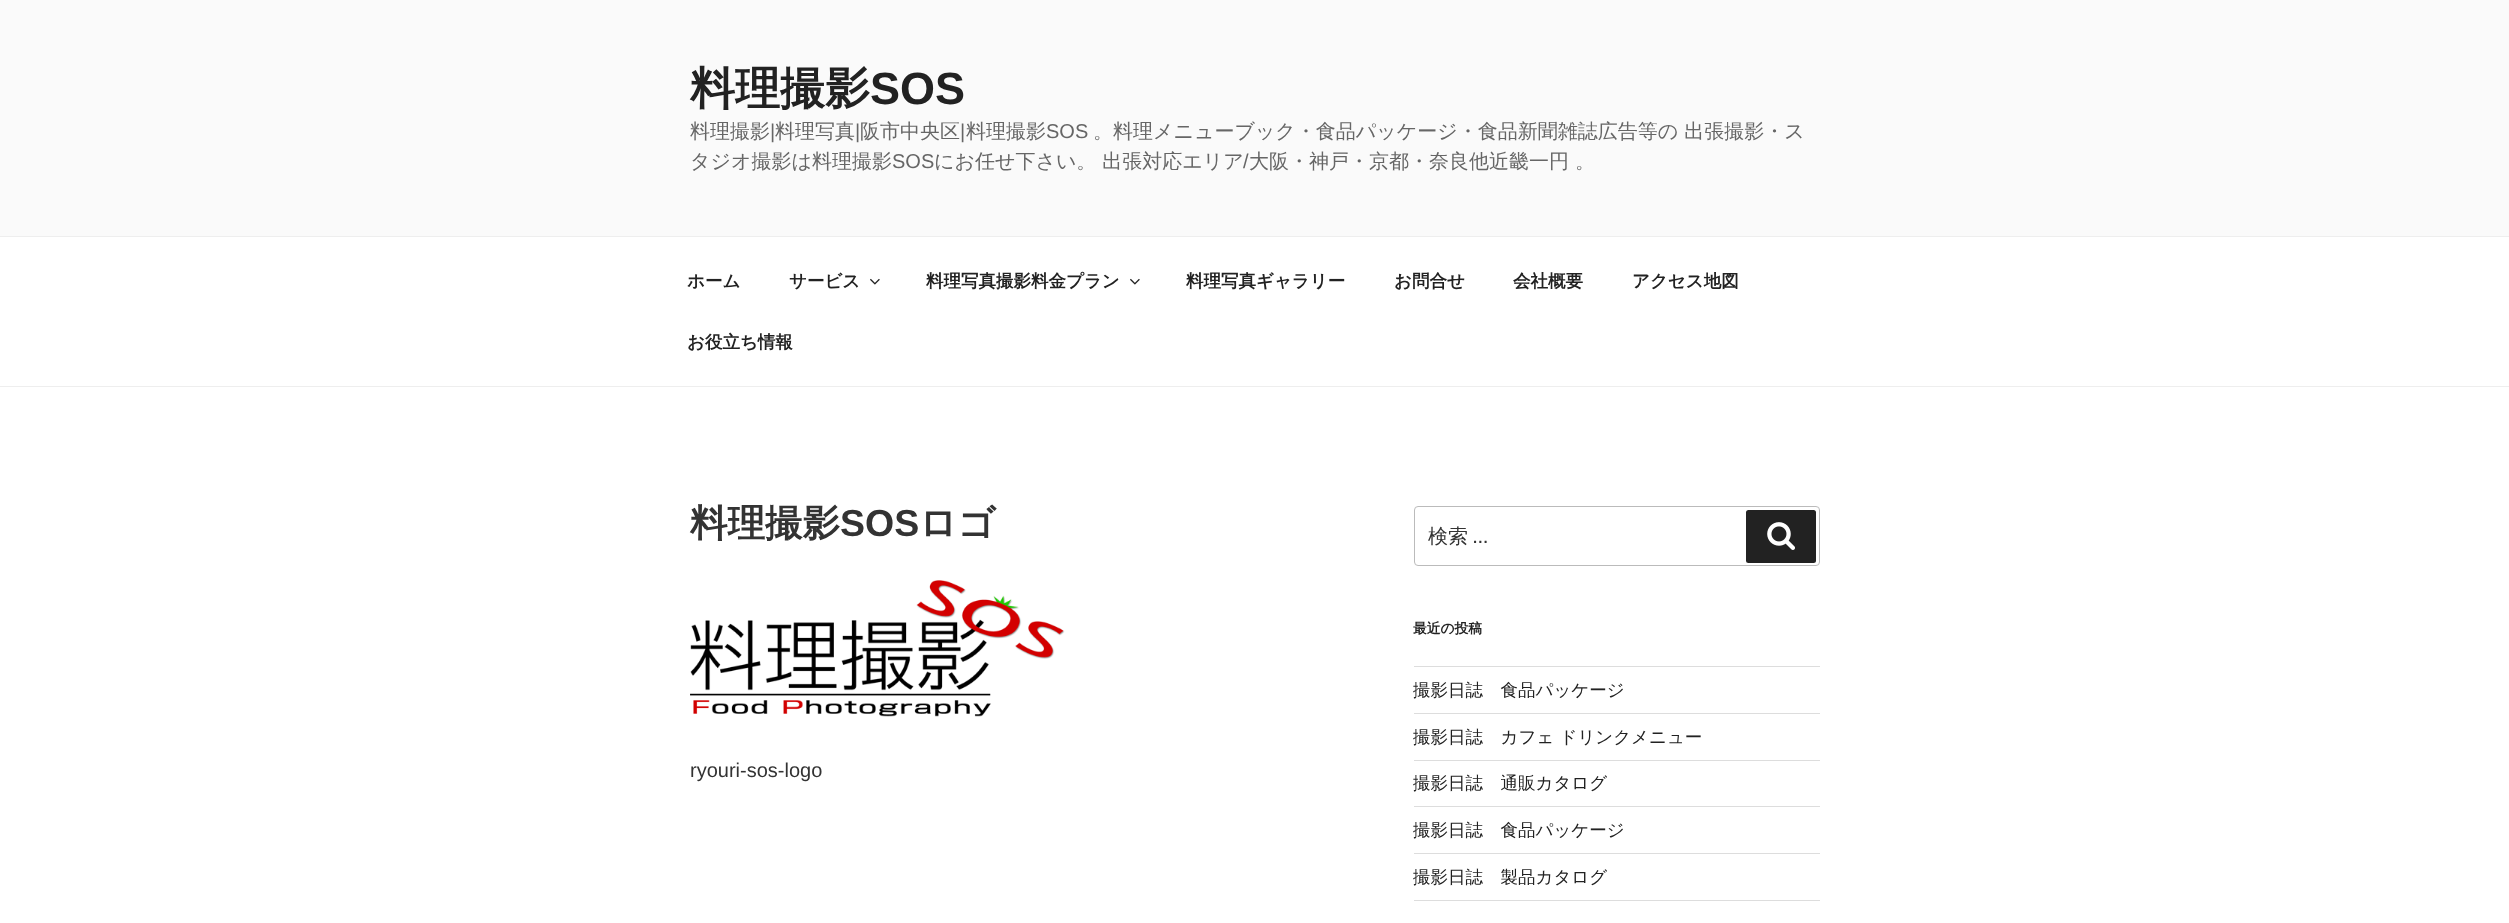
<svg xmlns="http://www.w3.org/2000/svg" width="2509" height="923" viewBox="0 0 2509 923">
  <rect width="100%" height="100%" fill="rgb(255,255,255)"/>
  <rect x="0" y="0" width="2509" height="236" fill="rgb(250,250,250)"/>
  <text x="690" y="104" font-family="WenQuanYi Zen Hei" font-size="45" font-weight="bold" fill="rgb(34,34,34)">料理撮影</text>
  <text x="870" y="104" font-family="Liberation Sans" font-size="45" font-weight="bold" fill="rgb(34,34,34)">SOS</text>
  <text x="690" y="138" font-family="WenQuanYi Zen Hei" font-size="20" font-weight="500" fill="rgb(102,102,102)">料理撮影</text>
  <text x="770" y="138" font-family="Liberation Sans" font-size="20" fill="rgb(102,102,102)">|</text>
  <text x="775" y="138" font-family="WenQuanYi Zen Hei" font-size="20" font-weight="500" fill="rgb(102,102,102)">料理写真</text>
  <text x="855" y="138" font-family="Liberation Sans" font-size="20" fill="rgb(102,102,102)">|</text>
  <text x="860" y="138" font-family="WenQuanYi Zen Hei" font-size="20" font-weight="500" fill="rgb(102,102,102)">阪市中央区</text>
  <text x="960" y="138" font-family="Liberation Sans" font-size="20" fill="rgb(102,102,102)">|</text>
  <text x="966" y="138" font-family="WenQuanYi Zen Hei" font-size="20" font-weight="500" fill="rgb(102,102,102)">料理撮影</text>
  <text x="1046" y="138" font-family="Liberation Sans" font-size="20" fill="rgb(102,102,102)">SOS</text>
  <g font-family="WenQuanYi Zen Hei" font-size="20" font-weight="500" fill="rgb(102,102,102)">
    <text x="1093" y="138">。料理メニューブック・食品パッケージ・食品新聞雑誌広告等の 出張撮影・ス</text>
    <text x="690" y="168">タジオ撮影は料理撮影</text>
  </g>
  <text x="892" y="168" font-family="Liberation Sans" font-size="20" fill="rgb(102,102,102)">SOS</text>
  <text x="934" y="168" font-family="WenQuanYi Zen Hei" font-size="20" font-weight="500" fill="rgb(102,102,102)">にお任せ下さい。 出張対応エリア</text>
  <text x="1243" y="168" font-family="Liberation Sans" font-size="20" fill="rgb(102,102,102)">/</text>
  <text x="1249" y="168" font-family="WenQuanYi Zen Hei" font-size="20" font-weight="500" fill="rgb(102,102,102)">大阪・神戸・京都・奈良他近畿一円 。</text>
  <rect x="0" y="236" width="2509" height="1" fill="rgb(238,238,238)"/>
  <rect x="0" y="386" width="2509" height="1" fill="rgb(238,238,238)"/>
  <g font-family="WenQuanYi Zen Hei" font-size="17.5" font-weight="bold" fill="rgb(34,34,34)">
    <text x="687" y="287">ホーム</text>
    <text x="789" y="287">サービス</text>
  </g>
  <image x="870" y="278" width="10" height="7" href="pic1.png"/>
  <text x="926" y="287" font-family="WenQuanYi Zen Hei" font-size="17.5" font-weight="bold" fill="rgb(34,34,34)">料理写真撮影料金プラン</text>
  <image x="1130" y="278" width="10" height="7" href="pic1.png"/>
  <g font-family="WenQuanYi Zen Hei" font-size="17.5" font-weight="bold" fill="rgb(34,34,34)">
    <text x="1186" y="287">料理写真ギャラリー</text>
    <text x="1394" y="287">お問合せ</text>
    <text x="1513" y="287">会社概要</text>
    <text x="1632" y="287">アクセス地図</text>
    <text x="687" y="348">お役立ち情報</text>
  </g>
  <text x="690" y="536" font-family="WenQuanYi Zen Hei" font-size="37.5" font-weight="bold" fill="rgb(51,51,51)">料理撮影</text>
  <text x="840" y="536" font-family="Liberation Sans" font-size="37.5" font-weight="bold" fill="rgb(51,51,51)">SOS</text>
  <text x="919" y="536" font-family="WenQuanYi Zen Hei" font-size="37.5" font-weight="bold" fill="rgb(51,51,51)">ロゴ</text>
  <image x="690" y="580" width="375" height="137" href="pic2.png"/>
  <text x="690" y="777" font-family="Liberation Sans" font-size="20" fill="rgb(51,51,51)">ryouri-sos-logo</text>
  <rect x="1414.5" y="506.5" width="405" height="59" rx="3.5" fill="none" stroke="rgb(187,187,187)"/>
  <text x="1428" y="543" font-family="WenQuanYi Zen Hei" font-size="20" font-weight="500" fill="rgb(51,51,51)">検索</text>
  <text x="1473" y="543" font-family="Libre Franklin" font-size="20" fill="rgb(51,51,51)">…</text>
  <rect x="1746" y="510" width="70" height="53" rx="2.5" fill="rgb(34,34,34)"/>
  <image x="1767" y="522" width="28" height="28" href="pic3.png"/>
  <text x="1413" y="633" font-family="WenQuanYi Zen Hei" font-size="13.75" font-weight="bold" fill="rgb(34,34,34)">最近の投稿</text>
  <rect x="1414" y="666" width="406" height="1" fill="rgb(221,221,221)"/>
  <rect x="1414" y="713" width="406" height="1" fill="rgb(221,221,221)"/>
  <text x="1413" y="696" font-family="WenQuanYi Zen Hei" font-size="17.5" font-weight="500" fill="rgb(34,34,34)">撮影日誌　食品パッケージ</text>
  <rect x="1414" y="760" width="406" height="1" fill="rgb(221,221,221)"/>
  <text x="1413" y="743" font-family="WenQuanYi Zen Hei" font-size="17.5" font-weight="500" fill="rgb(34,34,34)">撮影日誌　カフェ ドリンクメニュー</text>
  <rect x="1414" y="806" width="406" height="1" fill="rgb(221,221,221)"/>
  <text x="1413" y="789" font-family="WenQuanYi Zen Hei" font-size="17.5" font-weight="500" fill="rgb(34,34,34)">撮影日誌　通販カタログ</text>
  <rect x="1414" y="853" width="406" height="1" fill="rgb(221,221,221)"/>
  <text x="1413" y="836" font-family="WenQuanYi Zen Hei" font-size="17.5" font-weight="500" fill="rgb(34,34,34)">撮影日誌　食品パッケージ</text>
  <rect x="1414" y="900" width="406" height="1" fill="rgb(221,221,221)"/>
  <text x="1413" y="883" font-family="WenQuanYi Zen Hei" font-size="17.5" font-weight="500" fill="rgb(34,34,34)">撮影日誌　製品カタログ</text>
</svg>
